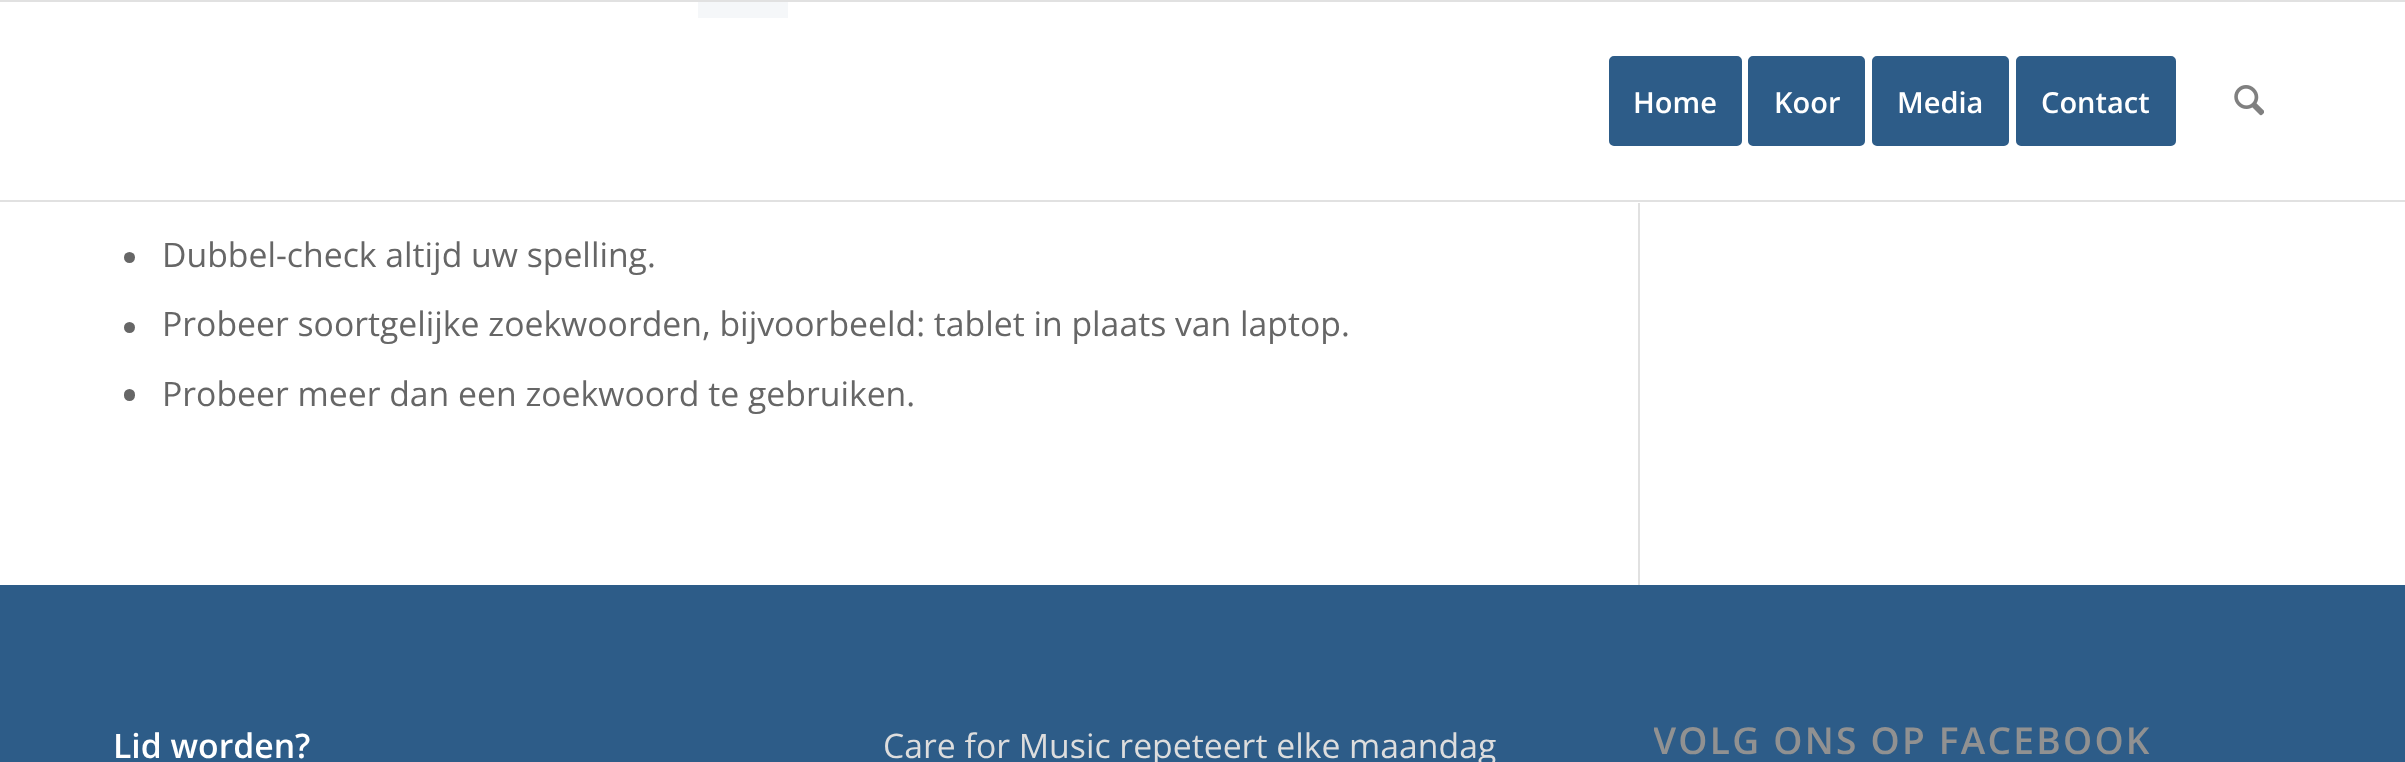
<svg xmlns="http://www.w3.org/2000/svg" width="2405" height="762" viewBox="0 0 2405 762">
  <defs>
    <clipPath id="clip1"><rect x="1654" y="689" width="639" height="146"/></clipPath>
  </defs>
  <rect width="100%" height="100%" fill="rgb(255,255,255)"/>
  <rect x="0" y="0" width="2405" height="2" fill="rgb(225,225,225)"/>
  <rect x="0" y="200" width="2405" height="2" fill="rgb(225,225,225)"/>
  <rect x="1611.5" y="58.5" width="128" height="85" rx="2.5" fill="rgb(45,92,136)" stroke="rgb(45,92,136)" stroke-width="5"/>
  <text x="1633" y="113" font-family="Open Sans" font-size="29" font-weight="600" fill="rgb(255,255,255)">Home</text>
  <rect x="1750.5" y="58.5" width="112" height="85" rx="2.5" fill="rgb(45,92,136)" stroke="rgb(45,92,136)" stroke-width="5"/>
  <text x="1774" y="113" font-family="Open Sans" font-size="29" font-weight="600" fill="rgb(255,255,255)">Koor</text>
  <rect x="1874.5" y="58.5" width="132" height="85" rx="2.5" fill="rgb(45,92,136)" stroke="rgb(45,92,136)" stroke-width="5"/>
  <text x="1897" y="113" font-family="Open Sans" font-size="29" font-weight="600" fill="rgb(255,255,255)">Media</text>
  <rect x="2018.5" y="58.5" width="155" height="85" rx="2.5" fill="rgb(45,92,136)" stroke="rgb(45,92,136)" stroke-width="5"/>
  <text x="2041" y="113" font-family="Open Sans" font-size="29" font-weight="600" fill="rgb(255,255,255)">Contact</text>
  <image x="2234" y="85" width="30" height="31" href="pic1.png"/>
  <rect x="1638" y="203" width="2" height="382" fill="rgb(225,225,225)"/>
  <rect x="698" y="2" width="90" height="16" fill="rgb(245,247,249)"/>
  <circle cx="129.5" cy="257.5" r="5.5" fill="rgb(102,102,102)"/>
  <text x="162" y="267" font-family="Open Sans" font-size="33.75" fill="rgb(102,102,102)">Dubbel-check altijd uw spelling.</text>
  <circle cx="129.5" cy="327.5" r="5.5" fill="rgb(102,102,102)"/>
  <text x="162" y="336" font-family="Open Sans" font-size="33.75" fill="rgb(102,102,102)">Probeer soortgelijke zoekwoorden, bijvoorbeeld: tablet in plaats van laptop.</text>
  <rect x="124" y="389" width="11" height="12" rx="5.5" fill="rgb(102,102,102)"/>
  <text x="162" y="406" font-family="Open Sans" font-size="33.75" fill="rgb(102,102,102)">Probeer meer dan een zoekwoord te gebruiken.</text>
  <rect x="0" y="585" width="2405" height="177" fill="rgb(45,92,136)"/>
  <text x="113" y="758" font-family="Open Sans" font-size="33.75" font-weight="600" fill="rgb(255,255,255)">Lid worden?</text>
  <text x="883" y="758" font-family="Open Sans" font-size="33.75" fill="rgb(221,221,221)">Care for Music repeteert elke maandag</text>
  <g clip-path="url(#clip1)">
    <text x="1653" y="754" font-family="Open Sans" font-size="37.1" font-weight="600" letter-spacing="2.25" fill="rgb(145,145,145)">VOLG ONS OP FACEBOOK</text>
  </g>
</svg>
